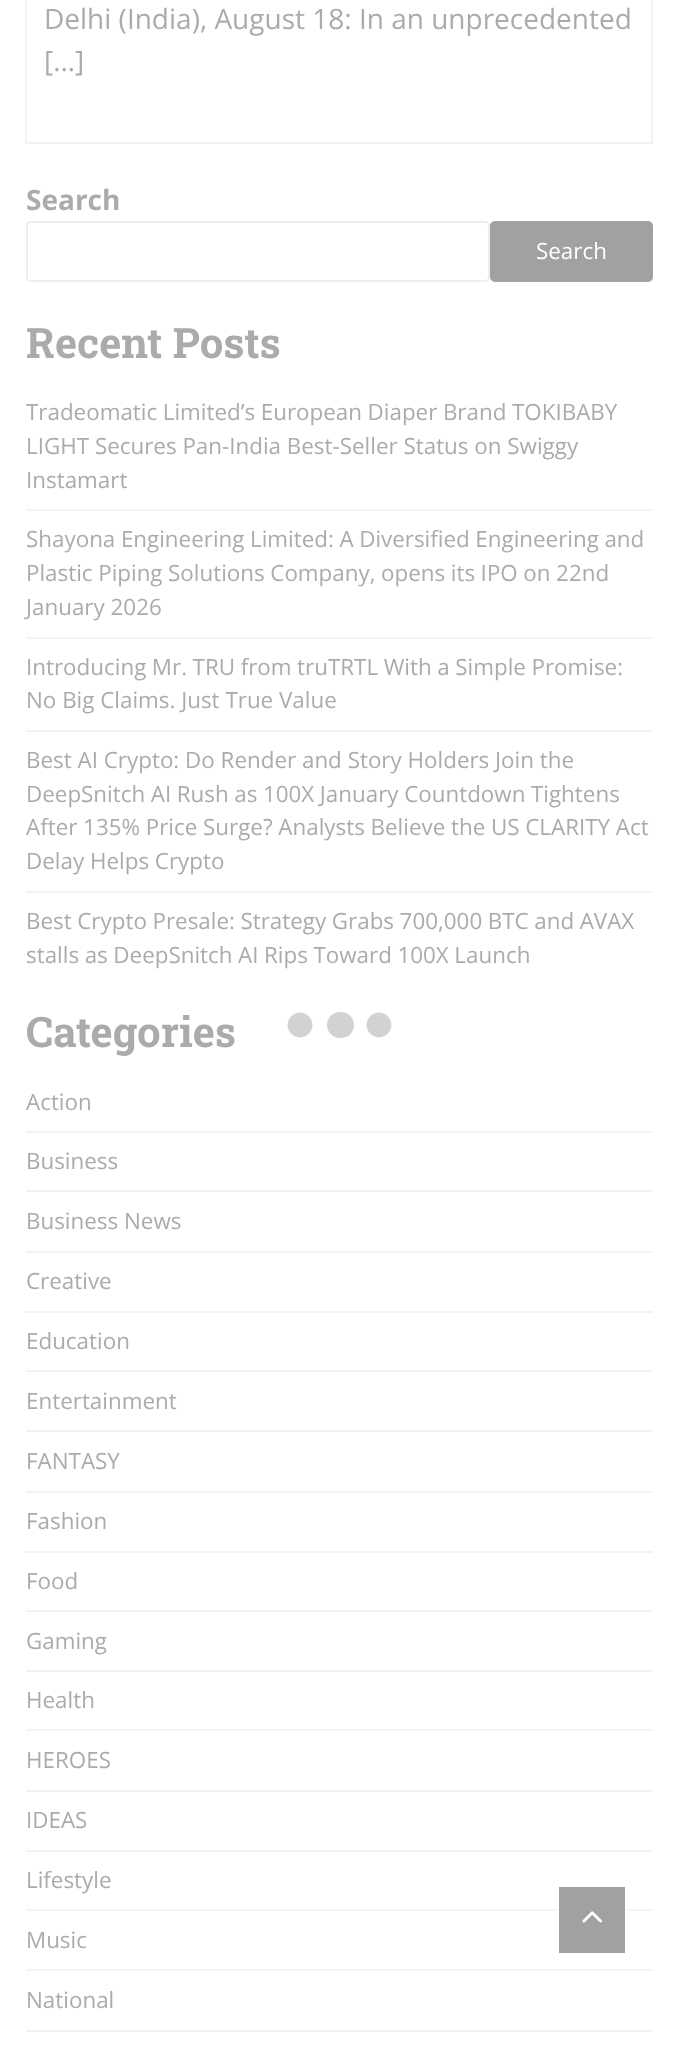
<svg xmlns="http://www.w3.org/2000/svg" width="679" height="2047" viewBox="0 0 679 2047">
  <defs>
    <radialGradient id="g1" gradientUnits="userSpaceOnUse" cx="379" cy="1025" r="13"><stop offset="0.9" stop-color="rgb(210,210,211)"/><stop offset="1" stop-color="rgb(255,255,255)"/></radialGradient>
    <radialGradient id="g2" gradientUnits="userSpaceOnUse" cx="300" cy="1025" r="13"><stop offset="0.9" stop-color="rgb(210,210,211)"/><stop offset="1" stop-color="rgb(255,255,255)"/></radialGradient>
  </defs>
  <rect width="100%" height="100%" fill="rgb(255,255,255)"/>
  <rect x="26" y="-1" width="626" height="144" fill="none" stroke="rgb(243,243,243)" stroke-width="2"/>
  <g font-family="Open Sans" font-size="28" fill="rgb(170,171,171)">
    <text>
      <tspan x="44" y="29">Delhi (India), August 18: In an unprecedented</tspan>
      <tspan x="44" y="71">[…]</tspan>
    </text>
  </g>
  <text x="26" y="210" font-family="Open Sans" font-size="28" font-weight="bold" fill="rgb(170,171,171)">Search</text>
  <rect x="27" y="222" width="462" height="59" rx="4" fill="none" stroke="rgb(239,237,238)" stroke-width="2"/>
  <rect x="491" y="222" width="161" height="59" rx="4" fill="rgb(161,161,161)" stroke="rgb(161,161,161)" stroke-width="2"/>
  <text x="536" y="259" font-family="Open Sans" font-size="22.4" fill="rgb(255,255,255)">Search</text>
  <text x="26" y="358" font-family="Roboto Slab" font-size="42" font-weight="bold" fill="rgb(170,171,171)">Recent Posts</text>
  <rect x="26" y="509" width="627" height="2" fill="rgb(243,243,243)"/>
  <g font-family="Open Sans" font-size="22.4" fill="rgb(170,171,171)">
    <text>
      <tspan x="26" y="420" word-spacing="-0.25">Tradeomatic Limited’s European Diaper Brand TOKIBABY</tspan>
      <tspan x="26" y="454">LIGHT Secures Pan-India Best-Seller Status on Swiggy</tspan>
      <tspan x="26" y="488">Instamart</tspan>
    </text>
  </g>
  <rect x="26" y="637" width="627" height="2" fill="rgb(243,243,243)"/>
  <g font-family="Open Sans" font-size="22.4" fill="rgb(170,171,171)">
    <text>
      <tspan x="26" y="547" word-spacing="-0.25">Shayona Engineering Limited: A Diversified Engineering and</tspan>
      <tspan x="26" y="581" word-spacing="-0.25">Plastic Piping Solutions Company, opens its IPO on 22nd</tspan>
      <tspan x="26" y="615">January 2026</tspan>
    </text>
  </g>
  <rect x="26" y="730" width="627" height="2" fill="rgb(243,243,243)"/>
  <g font-family="Open Sans" font-size="22.4" fill="rgb(170,171,171)">
    <text>
      <tspan x="26" y="675" word-spacing="-0.25">Introducing Mr. TRU from truTRTL With a Simple Promise:</tspan>
      <tspan x="26" y="708">No Big Claims. Just True Value</tspan>
    </text>
  </g>
  <rect x="26" y="891" width="627" height="2" fill="rgb(243,243,243)"/>
  <g font-family="Open Sans" font-size="22.4" fill="rgb(170,171,171)">
    <text>
      <tspan x="26" y="768">Best AI Crypto: Do Render and Story Holders Join the</tspan>
      <tspan x="26" y="802" word-spacing="-0.25">DeepSnitch AI Rush as 100X January Countdown Tightens</tspan>
      <tspan x="26" y="835" word-spacing="-0.1">After 135% Price Surge? Analysts Believe the US CLARITY Act</tspan>
      <tspan x="26" y="869">Delay Helps Crypto</tspan>
    </text>
    <text>
      <tspan x="26" y="929" word-spacing="-0.25">Best Crypto Presale: Strategy Grabs 700,000 BTC and AVAX</tspan>
      <tspan x="26" y="963" word-spacing="-0.25">stalls as DeepSnitch AI Rips Toward 100X Launch</tspan>
    </text>
  </g>
  <text x="26" y="1047" font-family="Roboto Slab" font-size="42" font-weight="bold" fill="rgb(170,171,171)">Categories</text>
  <rect x="26" y="1131" width="627" height="2" fill="rgb(243,243,243)"/>
  <text x="26" y="1110" font-family="Open Sans" font-size="22.4" fill="rgb(170,171,171)">Action</text>
  <rect x="26" y="1190" width="627" height="2" fill="rgb(243,243,243)"/>
  <text x="26" y="1169" font-family="Open Sans" font-size="22.4" fill="rgb(170,171,171)">Business</text>
  <rect x="26" y="1251" width="627" height="2" fill="rgb(243,243,243)"/>
  <text x="26" y="1229" font-family="Open Sans" font-size="22.4" fill="rgb(170,171,171)">Business News</text>
  <rect x="26" y="1311" width="627" height="2" fill="rgb(243,243,243)"/>
  <text x="26" y="1289" font-family="Open Sans" font-size="22.4" fill="rgb(170,171,171)">Creative</text>
  <rect x="26" y="1370" width="627" height="2" fill="rgb(243,243,243)"/>
  <text x="26" y="1349" font-family="Open Sans" font-size="22.4" fill="rgb(170,171,171)">Education</text>
  <rect x="26" y="1430" width="627" height="2" fill="rgb(243,243,243)"/>
  <text x="26" y="1409" font-family="Open Sans" font-size="22.4" fill="rgb(170,171,171)">Entertainment</text>
  <rect x="26" y="1491" width="627" height="2" fill="rgb(243,243,243)"/>
  <text x="26" y="1469" font-family="Open Sans" font-size="22.4" fill="rgb(170,171,171)">FANTASY</text>
  <rect x="26" y="1551" width="627" height="2" fill="rgb(243,243,243)"/>
  <text x="26" y="1529" font-family="Open Sans" font-size="22.4" fill="rgb(170,171,171)">Fashion</text>
  <rect x="26" y="1610" width="627" height="2" fill="rgb(243,243,243)"/>
  <text x="26" y="1589" font-family="Open Sans" font-size="22.4" fill="rgb(170,171,171)">Food</text>
  <rect x="26" y="1670" width="627" height="2" fill="rgb(243,243,243)"/>
  <text x="26" y="1649" font-family="Open Sans" font-size="22.4" fill="rgb(170,171,171)">Gaming</text>
  <rect x="26" y="1729" width="627" height="2" fill="rgb(243,243,243)"/>
  <text x="26" y="1708" font-family="Open Sans" font-size="22.4" fill="rgb(170,171,171)">Health</text>
  <rect x="26" y="1790" width="627" height="2" fill="rgb(243,243,243)"/>
  <text x="26" y="1768" font-family="Open Sans" font-size="22.4" fill="rgb(170,171,171)">HEROES</text>
  <rect x="26" y="1850" width="627" height="2" fill="rgb(243,243,243)"/>
  <text x="26" y="1828" font-family="Open Sans" font-size="22.4" fill="rgb(170,171,171)">IDEAS</text>
  <rect x="26" y="1909" width="627" height="2" fill="rgb(243,243,243)"/>
  <text x="26" y="1888" font-family="Open Sans" font-size="22.4" fill="rgb(170,171,171)">Lifestyle</text>
  <rect x="26" y="1969" width="627" height="2" fill="rgb(243,243,243)"/>
  <text x="26" y="1948" font-family="Open Sans" font-size="22.4" fill="rgb(170,171,171)">Music</text>
  <rect x="26" y="2030" width="627" height="2" fill="rgb(243,243,243)"/>
  <text x="26" y="2008" font-family="Open Sans" font-size="22.4" fill="rgb(170,171,171)">National</text>
  <rect x="366" y="1012" width="26" height="26" fill="url(#g1)"/>
  <rect x="287" y="1012" width="26" height="26" fill="url(#g2)"/>
  <rect x="327" y="1012" width="27" height="26" rx="13" fill="rgb(210,210,211)"/>
  <rect x="558" y="1886" width="68" height="68" fill="rgb(161,161,161)" stroke="rgb(255,255,255)" stroke-width="2"/>
  <image x="582" y="1911" width="20" height="12" href="pic1.png"/>
</svg>
